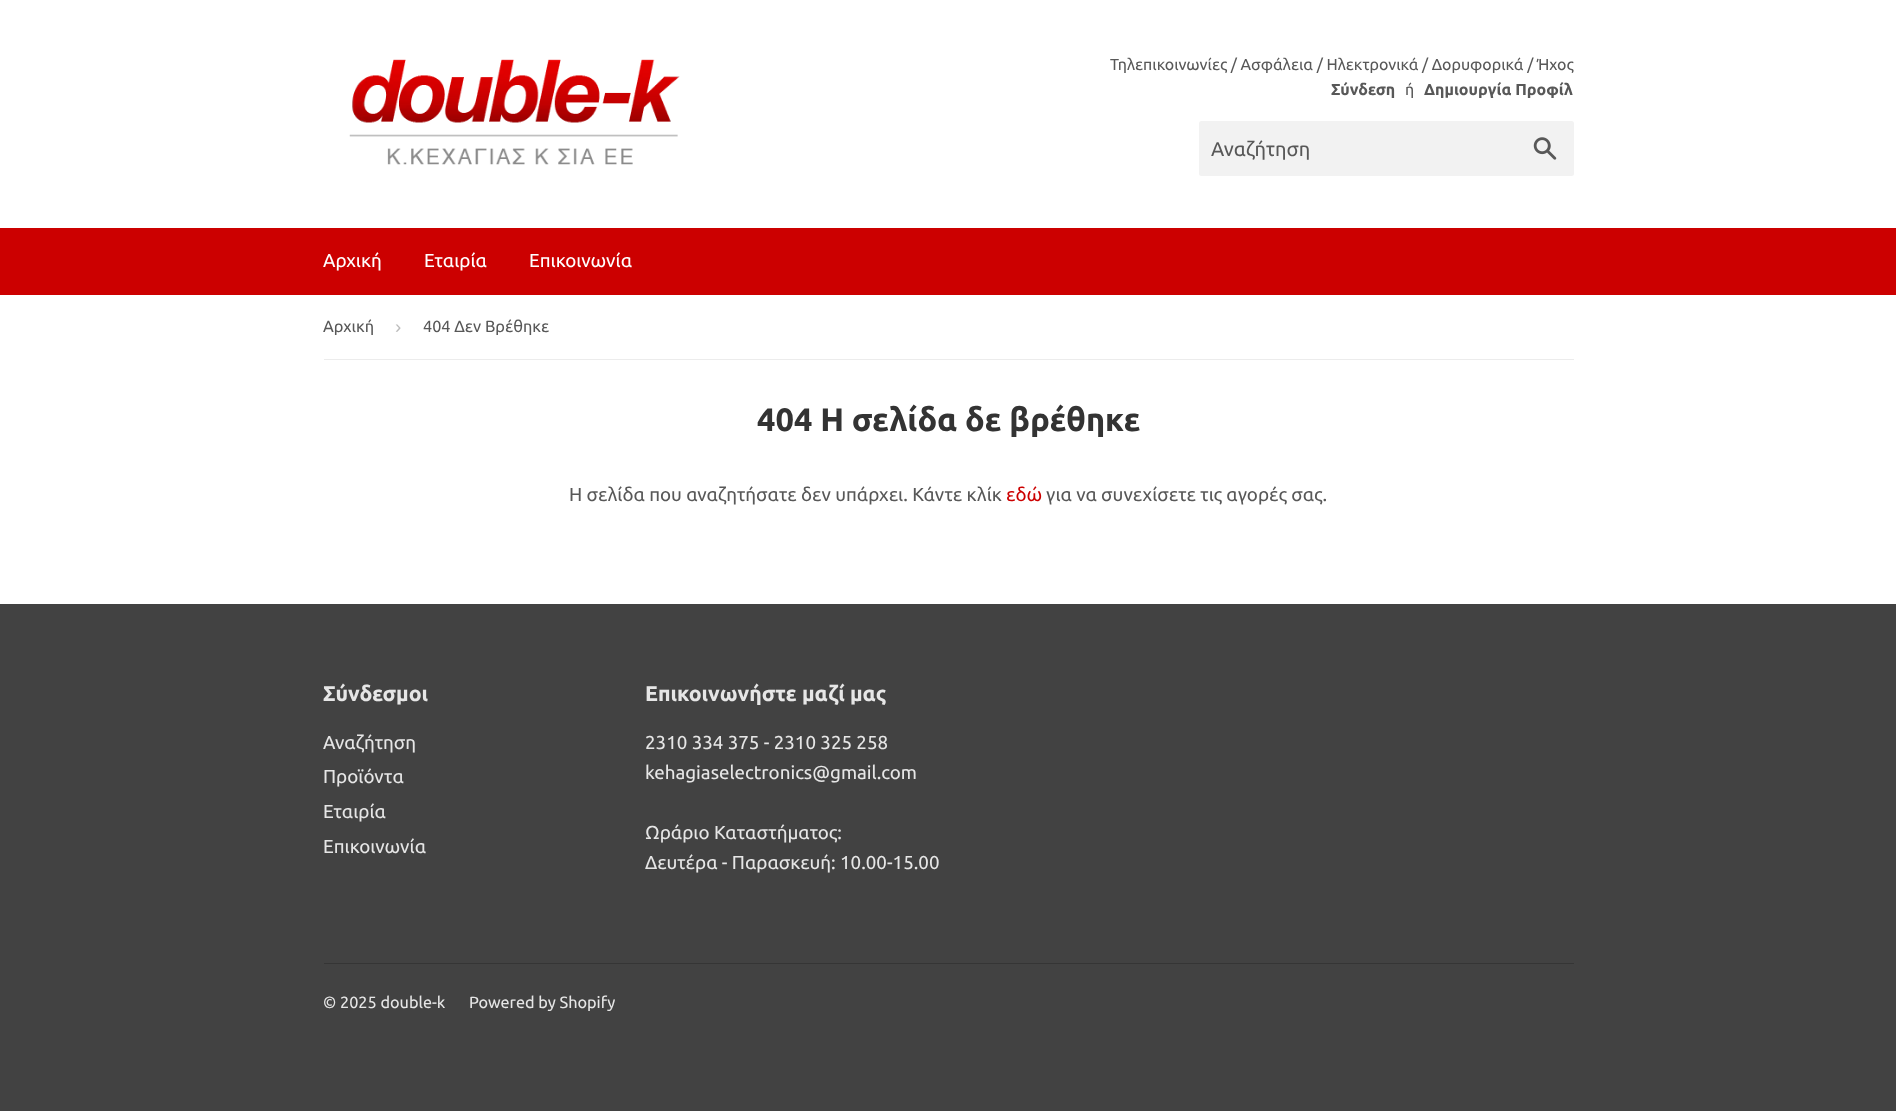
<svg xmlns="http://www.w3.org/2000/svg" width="1896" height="1111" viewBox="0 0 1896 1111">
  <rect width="100%" height="100%" fill="rgb(66,66,66)"/>
  <rect x="0" y="0" width="1896" height="604" fill="rgb(255,255,255)"/>
  <image x="349" y="59" width="331" height="106" href="pic1.png"/>
  <text x="1110" y="70" font-family="Ubuntu" font-size="15.95" fill="rgb(88,88,88)">Τηλεπικοινωνίες / Ασφάλεια / Ηλεκτρονικά / Δορυφορικά / Ήχος</text>
  <text x="1331" y="95" font-family="Ubuntu" font-size="15.95" font-weight="bold" fill="rgb(88,88,88)">Σύνδεση</text>
  <text x="1405" y="95" font-family="Ubuntu" font-size="15.95" fill="rgb(88,88,88)">ή</text>
  <text x="1424" y="95" font-family="Ubuntu" font-size="15.95" font-weight="bold" fill="rgb(88,88,88)">Δημιουργία Προφίλ</text>
  <rect x="1199" y="121" width="375" height="55" rx="2.5" fill="rgb(242,242,242)"/>
  <text x="1211" y="156" font-family="Ubuntu" font-size="20" fill="rgb(88,88,88)">Αναζήτηση</text>
  <image x="1533" y="137" width="24" height="23" href="pic2.png"/>
  <rect x="0" y="228" width="1896" height="67" fill="rgb(204,0,0)"/>
  <g font-family="Ubuntu" font-size="18.75" fill="rgb(255,255,255)">
    <text x="323" y="267">Αρχική</text>
    <text x="424" y="267">Εταιρία</text>
    <text x="529" y="267">Επικοινωνία</text>
  </g>
  <rect x="324" y="359" width="1250" height="1" fill="rgb(236,236,236)"/>
  <text x="323" y="332" font-family="Ubuntu" font-size="16.25" fill="rgb(88,88,88)">Αρχική</text>
  <text x="395" y="333" font-family="Liberation Sans" font-size="18.75" fill="rgb(187,187,187)">›</text>
  <text x="423" y="332" font-family="Ubuntu" font-size="16.25" fill="rgb(88,88,88)">404 Δεν Βρέθηκε</text>
  <text x="757" y="431" font-family="Ubuntu" font-size="32.5" font-weight="bold" fill="rgb(51,51,51)">404 Η σελίδα δε βρέθηκε</text>
  <text x="569" y="501" font-family="Ubuntu" font-size="18.75" fill="rgb(88,88,88)">Η σελίδα που αναζητήσατε δεν υπάρχει. Κάντε κλίκ</text>
  <text x="1006" y="501" font-family="Ubuntu" font-size="18.75" fill="rgb(204,0,0)">εδώ</text>
  <text x="1046" y="501" font-family="Ubuntu" font-size="18.75" fill="rgb(88,88,88)">για να συνεχίσετε τις αγορές σας.</text>
  <text x="323" y="701" font-family="Ubuntu" font-size="21.25" font-weight="bold" fill="rgb(230,230,230)">Σύνδεσμοι</text>
  <g font-family="Ubuntu" font-size="18.75" fill="rgb(230,230,230)">
    <text>
      <tspan x="323" y="749">Αναζήτηση</tspan>
      <tspan x="323" y="783">Προϊόντα</tspan>
      <tspan x="323" y="818">Εταιρία</tspan>
      <tspan x="323" y="853">Επικοινωνία</tspan>
    </text>
  </g>
  <text x="645" y="701" font-family="Ubuntu" font-size="21.25" font-weight="bold" fill="rgb(230,230,230)">Επικοινωνήστε μαζί μας</text>
  <g font-family="Ubuntu" font-size="18.75" fill="rgb(230,230,230)">
    <text>
      <tspan x="645" y="749">2310 334 375 - 2310 325 258</tspan>
      <tspan x="645" y="779">kehagiaselectronics@gmail.com</tspan>
    </text>
    <text>
      <tspan x="645" y="839">Ωράριο Καταστήματος:</tspan>
      <tspan x="645" y="869">Δευτέρα - Παρασκευή: 10.00-15.00</tspan>
    </text>
  </g>
  <rect x="324" y="963" width="1250" height="1" fill="rgb(53,53,53)"/>
  <g font-family="Ubuntu" font-size="16.25" fill="rgb(230,230,230)">
    <text x="323" y="1008">© 2025 double-k</text>
    <text x="469" y="1008">Powered by Shopify</text>
  </g>
</svg>
